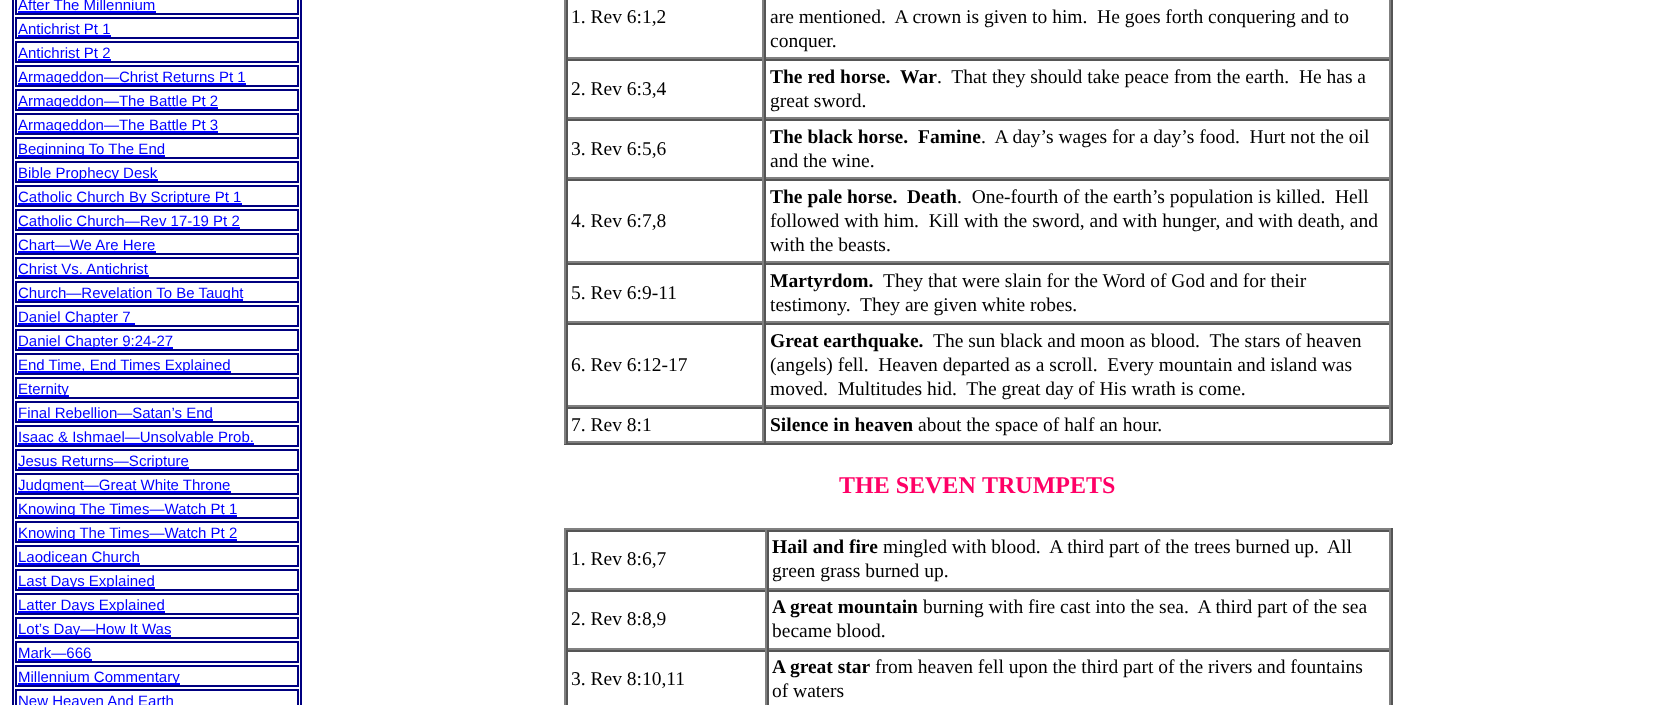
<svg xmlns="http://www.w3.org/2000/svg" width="1664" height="705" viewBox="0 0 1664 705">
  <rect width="100%" height="100%" fill="rgb(255,255,255)"/>
  <rect x="13" y="-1" width="288" height="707" fill="none" stroke="rgb(0,0,128)" stroke-width="2"/>
  <rect x="16" y="-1" width="282" height="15" fill="none" stroke="rgb(0,0,128)" stroke-width="2"/>
  <text x="18" y="10" font-family="Liberation Sans" font-size="15" fill="rgb(0,0,255)">After The Millennium</text>
  <rect x="18" y="11" width="138" height="2" fill="rgb(0,0,255)"/>
  <rect x="16" y="18" width="282" height="20" fill="none" stroke="rgb(0,0,128)" stroke-width="2"/>
  <text x="18" y="34" font-family="Liberation Sans" font-size="15" fill="rgb(0,0,255)">Antichrist Pt 1</text>
  <rect x="18" y="35" width="93" height="2" fill="rgb(0,0,255)"/>
  <rect x="16" y="42" width="282" height="20" fill="none" stroke="rgb(0,0,128)" stroke-width="2"/>
  <text x="18" y="58" font-family="Liberation Sans" font-size="15" fill="rgb(0,0,255)">Antichrist Pt 2</text>
  <rect x="18" y="59" width="93" height="2" fill="rgb(0,0,255)"/>
  <rect x="16" y="66" width="282" height="20" fill="none" stroke="rgb(0,0,128)" stroke-width="2"/>
  <rect x="18" y="83" width="228" height="2" fill="rgb(0,0,255)"/>
  <text x="18" y="82" font-family="Liberation Sans" font-size="15" fill="rgb(0,0,255)">Armageddon—Christ Returns Pt 1</text>
  <rect x="16" y="90" width="282" height="20" fill="none" stroke="rgb(0,0,128)" stroke-width="2"/>
  <rect x="18" y="107" width="200" height="2" fill="rgb(0,0,255)"/>
  <text x="18" y="106" font-family="Liberation Sans" font-size="15" fill="rgb(0,0,255)">Armageddon—The Battle Pt 2</text>
  <rect x="16" y="114" width="282" height="20" fill="none" stroke="rgb(0,0,128)" stroke-width="2"/>
  <rect x="18" y="131" width="200" height="2" fill="rgb(0,0,255)"/>
  <text x="18" y="130" font-family="Liberation Sans" font-size="15" fill="rgb(0,0,255)">Armageddon—The Battle Pt 3</text>
  <rect x="16" y="138" width="282" height="20" fill="none" stroke="rgb(0,0,128)" stroke-width="2"/>
  <rect x="18" y="155" width="147" height="2" fill="rgb(0,0,255)"/>
  <text x="18" y="154" font-family="Liberation Sans" font-size="15" fill="rgb(0,0,255)">Beginning To The End</text>
  <rect x="16" y="162" width="282" height="20" fill="none" stroke="rgb(0,0,128)" stroke-width="2"/>
  <rect x="18" y="179" width="140" height="2" fill="rgb(0,0,255)"/>
  <text x="18" y="178" font-family="Liberation Sans" font-size="15" fill="rgb(0,0,255)">Bible Prophecy Desk</text>
  <rect x="16" y="186" width="282" height="20" fill="none" stroke="rgb(0,0,128)" stroke-width="2"/>
  <rect x="18" y="203" width="224" height="2" fill="rgb(0,0,255)"/>
  <text x="18" y="202" font-family="Liberation Sans" font-size="15" fill="rgb(0,0,255)">Catholic Church By Scripture Pt 1</text>
  <rect x="16" y="210" width="282" height="20" fill="none" stroke="rgb(0,0,128)" stroke-width="2"/>
  <text x="18" y="226" font-family="Liberation Sans" font-size="15" fill="rgb(0,0,255)">Catholic Church—Rev 17-19 Pt 2</text>
  <rect x="18" y="227" width="222" height="2" fill="rgb(0,0,255)"/>
  <rect x="16" y="234" width="282" height="20" fill="none" stroke="rgb(0,0,128)" stroke-width="2"/>
  <text x="18" y="250" font-family="Liberation Sans" font-size="15" fill="rgb(0,0,255)">Chart—We Are Here</text>
  <rect x="18" y="251" width="138" height="2" fill="rgb(0,0,255)"/>
  <rect x="16" y="258" width="282" height="20" fill="none" stroke="rgb(0,0,128)" stroke-width="2"/>
  <text x="18" y="274" font-family="Liberation Sans" font-size="15" fill="rgb(0,0,255)">Christ Vs. Antichrist</text>
  <rect x="18" y="275" width="131" height="2" fill="rgb(0,0,255)"/>
  <rect x="16" y="282" width="282" height="20" fill="none" stroke="rgb(0,0,128)" stroke-width="2"/>
  <rect x="18" y="299" width="225" height="2" fill="rgb(0,0,255)"/>
  <text x="18" y="298" font-family="Liberation Sans" font-size="15" fill="rgb(0,0,255)">Church—Revelation To Be Taught</text>
  <rect x="16" y="306" width="282" height="20" fill="none" stroke="rgb(0,0,128)" stroke-width="2"/>
  <rect x="18" y="323" width="117" height="2" fill="rgb(0,0,255)"/>
  <text x="18" y="322" font-family="Liberation Sans" font-size="15" fill="rgb(0,0,255)">Daniel Chapter 7</text>
  <rect x="16" y="330" width="282" height="20" fill="none" stroke="rgb(0,0,128)" stroke-width="2"/>
  <rect x="18" y="347" width="155" height="2" fill="rgb(0,0,255)"/>
  <text x="18" y="346" font-family="Liberation Sans" font-size="15" fill="rgb(0,0,255)">Daniel Chapter 9:24-27</text>
  <rect x="16" y="354" width="282" height="20" fill="none" stroke="rgb(0,0,128)" stroke-width="2"/>
  <rect x="18" y="371" width="213" height="2" fill="rgb(0,0,255)"/>
  <text x="18" y="370" font-family="Liberation Sans" font-size="15" fill="rgb(0,0,255)">End Time, End Times Explained</text>
  <rect x="16" y="378" width="282" height="20" fill="none" stroke="rgb(0,0,128)" stroke-width="2"/>
  <rect x="18" y="395" width="51" height="2" fill="rgb(0,0,255)"/>
  <text x="18" y="394" font-family="Liberation Sans" font-size="15" fill="rgb(0,0,255)">Eternity</text>
  <rect x="16" y="402" width="282" height="20" fill="none" stroke="rgb(0,0,128)" stroke-width="2"/>
  <text x="18" y="418" font-family="Liberation Sans" font-size="15" fill="rgb(0,0,255)">Final Rebellion—Satan’s End</text>
  <rect x="18" y="419" width="195" height="2" fill="rgb(0,0,255)"/>
  <rect x="16" y="426" width="282" height="20" fill="none" stroke="rgb(0,0,128)" stroke-width="2"/>
  <text x="18" y="442" font-family="Liberation Sans" font-size="15" fill="rgb(0,0,255)">Isaac &amp; Ishmael—Unsolvable Prob.</text>
  <rect x="18" y="443" width="236" height="2" fill="rgb(0,0,255)"/>
  <rect x="16" y="450" width="282" height="20" fill="none" stroke="rgb(0,0,128)" stroke-width="2"/>
  <rect x="18" y="467" width="171" height="2" fill="rgb(0,0,255)"/>
  <text x="18" y="466" font-family="Liberation Sans" font-size="15" fill="rgb(0,0,255)">Jesus Returns—Scripture</text>
  <rect x="16" y="474" width="282" height="20" fill="none" stroke="rgb(0,0,128)" stroke-width="2"/>
  <rect x="18" y="491" width="213" height="2" fill="rgb(0,0,255)"/>
  <text x="18" y="490" font-family="Liberation Sans" font-size="15" fill="rgb(0,0,255)">Judgment—Great White Throne</text>
  <rect x="16" y="498" width="282" height="20" fill="none" stroke="rgb(0,0,128)" stroke-width="2"/>
  <rect x="18" y="515" width="219" height="2" fill="rgb(0,0,255)"/>
  <text x="18" y="514" font-family="Liberation Sans" font-size="15" fill="rgb(0,0,255)">Knowing The Times—Watch Pt 1</text>
  <rect x="16" y="522" width="282" height="20" fill="none" stroke="rgb(0,0,128)" stroke-width="2"/>
  <rect x="18" y="539" width="219" height="2" fill="rgb(0,0,255)"/>
  <text x="18" y="538" font-family="Liberation Sans" font-size="15" fill="rgb(0,0,255)">Knowing The Times—Watch Pt 2</text>
  <rect x="16" y="546" width="282" height="20" fill="none" stroke="rgb(0,0,128)" stroke-width="2"/>
  <text x="18" y="562" font-family="Liberation Sans" font-size="15" fill="rgb(0,0,255)">Laodicean Church</text>
  <rect x="18" y="563" width="122" height="2" fill="rgb(0,0,255)"/>
  <rect x="16" y="570" width="282" height="20" fill="none" stroke="rgb(0,0,128)" stroke-width="2"/>
  <rect x="18" y="587" width="137" height="2" fill="rgb(0,0,255)"/>
  <text x="18" y="586" font-family="Liberation Sans" font-size="15" fill="rgb(0,0,255)">Last Days Explained</text>
  <rect x="16" y="594" width="282" height="20" fill="none" stroke="rgb(0,0,128)" stroke-width="2"/>
  <rect x="18" y="611" width="147" height="2" fill="rgb(0,0,255)"/>
  <text x="18" y="610" font-family="Liberation Sans" font-size="15" fill="rgb(0,0,255)">Latter Days Explained</text>
  <rect x="16" y="618" width="282" height="20" fill="none" stroke="rgb(0,0,128)" stroke-width="2"/>
  <rect x="18" y="635" width="153" height="2" fill="rgb(0,0,255)"/>
  <text x="18" y="634" font-family="Liberation Sans" font-size="15" fill="rgb(0,0,255)">Lot’s Day—How It Was</text>
  <rect x="16" y="642" width="282" height="20" fill="none" stroke="rgb(0,0,128)" stroke-width="2"/>
  <text x="18" y="658" font-family="Liberation Sans" font-size="15" fill="rgb(0,0,255)">Mark—666</text>
  <rect x="18" y="659" width="74" height="2" fill="rgb(0,0,255)"/>
  <rect x="16" y="666" width="282" height="20" fill="none" stroke="rgb(0,0,128)" stroke-width="2"/>
  <rect x="18" y="683" width="162" height="2" fill="rgb(0,0,255)"/>
  <text x="18" y="682" font-family="Liberation Sans" font-size="15" fill="rgb(0,0,255)">Millennium Commentary</text>
  <rect x="16" y="690" width="282" height="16" fill="none" stroke="rgb(0,0,128)" stroke-width="2"/>
  <text x="18" y="706" font-family="Liberation Sans" font-size="15" fill="rgb(0,0,255)">New Heaven And Earth</text>
  <rect x="1391" y="0" width="2" height="444" fill="rgb(85,85,85)"/>
  <rect x="564" y="443" width="828" height="2" fill="rgb(85,85,85)"/>
  <rect x="564" y="0" width="2" height="444" fill="rgb(128,128,128)"/>
  <rect x="762" y="0" width="2" height="59" fill="rgb(128,128,128)"/>
  <rect x="566" y="57" width="198" height="2" fill="rgb(128,128,128)"/>
  <rect x="566" y="0" width="2" height="59" fill="rgb(85,85,85)"/>
  <text x="571" y="23" font-family="Liberation Serif" font-size="19.5" fill="rgb(0,0,0)">1. Rev 6:1,2</text>
  <rect x="1389" y="0" width="2" height="59" fill="rgb(128,128,128)"/>
  <rect x="764" y="57" width="627" height="2" fill="rgb(128,128,128)"/>
  <rect x="764" y="0" width="2" height="59" fill="rgb(85,85,85)"/>
  <g font-family="Liberation Serif" font-size="19.5" fill="rgb(0,0,0)">
    <text xml:space="preserve"><tspan x="770" y="23">are mentioned.  A crown is given to him.  He goes forth conquering and to</tspan><tspan x="770" y="47">conquer.</tspan></text>
  </g>
  <rect x="566" y="59" width="825" height="2" fill="rgb(85,85,85)"/>
  <rect x="762" y="59" width="2" height="60" fill="rgb(128,128,128)"/>
  <rect x="566" y="117" width="198" height="2" fill="rgb(128,128,128)"/>
  <rect x="566" y="59" width="2" height="60" fill="rgb(85,85,85)"/>
  <text x="571" y="95" font-family="Liberation Serif" font-size="19.5" fill="rgb(0,0,0)">2. Rev 6:3,4</text>
  <rect x="1389" y="59" width="2" height="60" fill="rgb(128,128,128)"/>
  <rect x="764" y="117" width="627" height="2" fill="rgb(128,128,128)"/>
  <rect x="764" y="59" width="2" height="60" fill="rgb(85,85,85)"/>
  <g font-family="Liberation Serif" font-size="19.5" font-weight="bold" fill="rgb(0,0,0)">
    <text x="770" y="83">The red horse.</text>
    <text x="900" y="83">War</text>
  </g>
  <g font-family="Liberation Serif" font-size="19.5" fill="rgb(0,0,0)">
    <text x="937" y="83" xml:space="preserve">.  That they should take peace from the earth.  He has a</text>
    <text x="770" y="107">great sword.</text>
  </g>
  <rect x="566" y="119" width="825" height="2" fill="rgb(85,85,85)"/>
  <rect x="762" y="119" width="2" height="60" fill="rgb(128,128,128)"/>
  <rect x="566" y="177" width="198" height="2" fill="rgb(128,128,128)"/>
  <rect x="566" y="119" width="2" height="60" fill="rgb(85,85,85)"/>
  <text x="571" y="155" font-family="Liberation Serif" font-size="19.5" fill="rgb(0,0,0)">3. Rev 6:5,6</text>
  <rect x="1389" y="119" width="2" height="60" fill="rgb(128,128,128)"/>
  <rect x="764" y="177" width="627" height="2" fill="rgb(128,128,128)"/>
  <rect x="764" y="119" width="2" height="60" fill="rgb(85,85,85)"/>
  <g font-family="Liberation Serif" font-size="19.5" font-weight="bold" fill="rgb(0,0,0)">
    <text x="770" y="143">The black horse.</text>
    <text x="918" y="143">Famine</text>
  </g>
  <g font-family="Liberation Serif" font-size="19.5" fill="rgb(0,0,0)">
    <text x="981" y="143" xml:space="preserve">.  A day’s wages for a day’s food.  Hurt not the oil</text>
    <text x="770" y="167">and the wine.</text>
  </g>
  <rect x="566" y="179" width="825" height="2" fill="rgb(85,85,85)"/>
  <rect x="762" y="179" width="2" height="84" fill="rgb(128,128,128)"/>
  <rect x="566" y="261" width="198" height="2" fill="rgb(128,128,128)"/>
  <rect x="566" y="179" width="2" height="84" fill="rgb(85,85,85)"/>
  <text x="571" y="227" font-family="Liberation Serif" font-size="19.5" fill="rgb(0,0,0)">4. Rev 6:7,8</text>
  <rect x="1389" y="179" width="2" height="84" fill="rgb(128,128,128)"/>
  <rect x="764" y="261" width="627" height="2" fill="rgb(128,128,128)"/>
  <rect x="764" y="179" width="2" height="84" fill="rgb(85,85,85)"/>
  <g font-family="Liberation Serif" font-size="19.5" font-weight="bold" fill="rgb(0,0,0)">
    <text x="770" y="203">The pale horse.</text>
    <text x="907" y="203">Death</text>
  </g>
  <g font-family="Liberation Serif" font-size="19.5" fill="rgb(0,0,0)">
    <text x="957" y="203" xml:space="preserve">.  One-fourth of the earth’s population is killed.</text>
    <text x="1335" y="203">Hell</text>
    <text xml:space="preserve"><tspan x="770" y="227">followed with him.  Kill with the sword, and with hunger, and with death, and</tspan><tspan x="770" y="251">with the beasts.</tspan></text>
  </g>
  <rect x="566" y="263" width="825" height="2" fill="rgb(85,85,85)"/>
  <rect x="762" y="263" width="2" height="60" fill="rgb(128,128,128)"/>
  <rect x="566" y="321" width="198" height="2" fill="rgb(128,128,128)"/>
  <rect x="566" y="263" width="2" height="60" fill="rgb(85,85,85)"/>
  <text x="571" y="299" font-family="Liberation Serif" font-size="19.5" fill="rgb(0,0,0)">5. Rev 6:9-11</text>
  <rect x="1389" y="263" width="2" height="60" fill="rgb(128,128,128)"/>
  <rect x="764" y="321" width="627" height="2" fill="rgb(128,128,128)"/>
  <rect x="764" y="263" width="2" height="60" fill="rgb(85,85,85)"/>
  <text x="770" y="287" font-family="Liberation Serif" font-size="19.5" font-weight="bold" fill="rgb(0,0,0)">Martyrdom.</text>
  <g font-family="Liberation Serif" font-size="19.5" fill="rgb(0,0,0)">
    <text x="883" y="287">They that were slain for the Word of God and for their</text>
    <text x="770" y="311">testimony.</text>
    <text x="860" y="311">They are given white robes.</text>
  </g>
  <rect x="566" y="323" width="825" height="2" fill="rgb(85,85,85)"/>
  <rect x="762" y="323" width="2" height="84" fill="rgb(128,128,128)"/>
  <rect x="566" y="405" width="198" height="2" fill="rgb(128,128,128)"/>
  <rect x="566" y="323" width="2" height="84" fill="rgb(85,85,85)"/>
  <text x="571" y="371" font-family="Liberation Serif" font-size="19.5" fill="rgb(0,0,0)">6. Rev 6:12-17</text>
  <rect x="1389" y="323" width="2" height="84" fill="rgb(128,128,128)"/>
  <rect x="764" y="405" width="627" height="2" fill="rgb(128,128,128)"/>
  <rect x="764" y="323" width="2" height="84" fill="rgb(85,85,85)"/>
  <text x="770" y="347" font-family="Liberation Serif" font-size="19.5" font-weight="bold" fill="rgb(0,0,0)">Great earthquake.</text>
  <g font-family="Liberation Serif" font-size="19.5" fill="rgb(0,0,0)">
    <text x="933" y="347" xml:space="preserve">The sun black and moon as blood.  The stars of heaven</text>
    <text xml:space="preserve"><tspan x="770" y="371">(angels) fell.  Heaven departed as a scroll.  Every mountain and island was</tspan><tspan x="770" y="395">moved.  Multitudes hid.  The great day of His wrath is come.</tspan></text>
  </g>
  <rect x="566" y="407" width="825" height="2" fill="rgb(85,85,85)"/>
  <rect x="762" y="407" width="2" height="36" fill="rgb(128,128,128)"/>
  <rect x="566" y="441" width="198" height="2" fill="rgb(128,128,128)"/>
  <rect x="566" y="407" width="2" height="36" fill="rgb(85,85,85)"/>
  <text x="571" y="431" font-family="Liberation Serif" font-size="19.5" fill="rgb(0,0,0)">7. Rev 8:1</text>
  <rect x="1389" y="407" width="2" height="36" fill="rgb(128,128,128)"/>
  <rect x="764" y="441" width="627" height="2" fill="rgb(128,128,128)"/>
  <rect x="764" y="407" width="2" height="36" fill="rgb(85,85,85)"/>
  <text x="770" y="431" font-family="Liberation Serif" font-size="19.5" font-weight="bold" fill="rgb(0,0,0)">Silence in heaven</text>
  <text x="918" y="431" font-family="Liberation Serif" font-size="19.5" fill="rgb(0,0,0)">about the space of half an hour.</text>
  <g font-family="Liberation Serif" font-size="24" font-weight="bold" fill="rgb(255,0,102)">
    <text x="839" y="493">THE SEVEN</text>
    <text x="982" y="493">TRUMPETS</text>
  </g>
  <rect x="564" y="528" width="828" height="2" fill="rgb(128,128,128)"/>
  <rect x="1391" y="528" width="2" height="177" fill="rgb(85,85,85)"/>
  <rect x="564" y="528" width="2" height="177" fill="rgb(128,128,128)"/>
  <rect x="566" y="530" width="825" height="2" fill="rgb(85,85,85)"/>
  <rect x="765" y="530" width="2" height="60" fill="rgb(128,128,128)"/>
  <rect x="566" y="588" width="201" height="2" fill="rgb(128,128,128)"/>
  <rect x="566" y="530" width="2" height="60" fill="rgb(85,85,85)"/>
  <text x="571" y="565" font-family="Liberation Serif" font-size="19.5" fill="rgb(0,0,0)">1. Rev 8:6,7</text>
  <rect x="1389" y="530" width="2" height="60" fill="rgb(128,128,128)"/>
  <rect x="767" y="588" width="624" height="2" fill="rgb(128,128,128)"/>
  <rect x="767" y="530" width="2" height="60" fill="rgb(85,85,85)"/>
  <text x="772" y="553" font-family="Liberation Serif" font-size="19.5" font-weight="bold" fill="rgb(0,0,0)">Hail and fire</text>
  <g font-family="Liberation Serif" font-size="19.5" fill="rgb(0,0,0)">
    <text x="883" y="553" xml:space="preserve">mingled with blood.  A third part of the trees burned up.</text>
    <text x="1327" y="553">All</text>
    <text x="772" y="577">green grass burned up.</text>
  </g>
  <rect x="566" y="590" width="825" height="2" fill="rgb(85,85,85)"/>
  <rect x="765" y="590" width="2" height="60" fill="rgb(128,128,128)"/>
  <rect x="566" y="648" width="201" height="2" fill="rgb(128,128,128)"/>
  <rect x="566" y="590" width="2" height="60" fill="rgb(85,85,85)"/>
  <text x="571" y="625" font-family="Liberation Serif" font-size="19.5" fill="rgb(0,0,0)">2. Rev 8:8,9</text>
  <rect x="1389" y="590" width="2" height="60" fill="rgb(128,128,128)"/>
  <rect x="767" y="648" width="624" height="2" fill="rgb(128,128,128)"/>
  <rect x="767" y="590" width="2" height="60" fill="rgb(85,85,85)"/>
  <text x="772" y="613" font-family="Liberation Serif" font-size="19.5" font-weight="bold" fill="rgb(0,0,0)">A great mountain</text>
  <g font-family="Liberation Serif" font-size="19.5" fill="rgb(0,0,0)">
    <text x="923" y="613" xml:space="preserve">burning with fire cast into the sea.  A third part of the sea</text>
    <text x="772" y="637">became blood.</text>
  </g>
  <rect x="566" y="650" width="825" height="2" fill="rgb(85,85,85)"/>
  <rect x="765" y="650" width="2" height="55" fill="rgb(128,128,128)"/>
  <rect x="566" y="650" width="2" height="55" fill="rgb(85,85,85)"/>
  <text x="571" y="685" font-family="Liberation Serif" font-size="19.5" fill="rgb(0,0,0)">3. Rev 8:10,11</text>
  <rect x="1389" y="650" width="2" height="55" fill="rgb(128,128,128)"/>
  <rect x="767" y="650" width="2" height="55" fill="rgb(85,85,85)"/>
  <text x="772" y="673" font-family="Liberation Serif" font-size="19.5" font-weight="bold" fill="rgb(0,0,0)">A great star</text>
  <g font-family="Liberation Serif" font-size="19.5" fill="rgb(0,0,0)">
    <text x="875" y="673">from heaven fell upon the third part of the rivers and fountains</text>
    <text x="772" y="697">of waters</text>
  </g>
</svg>
